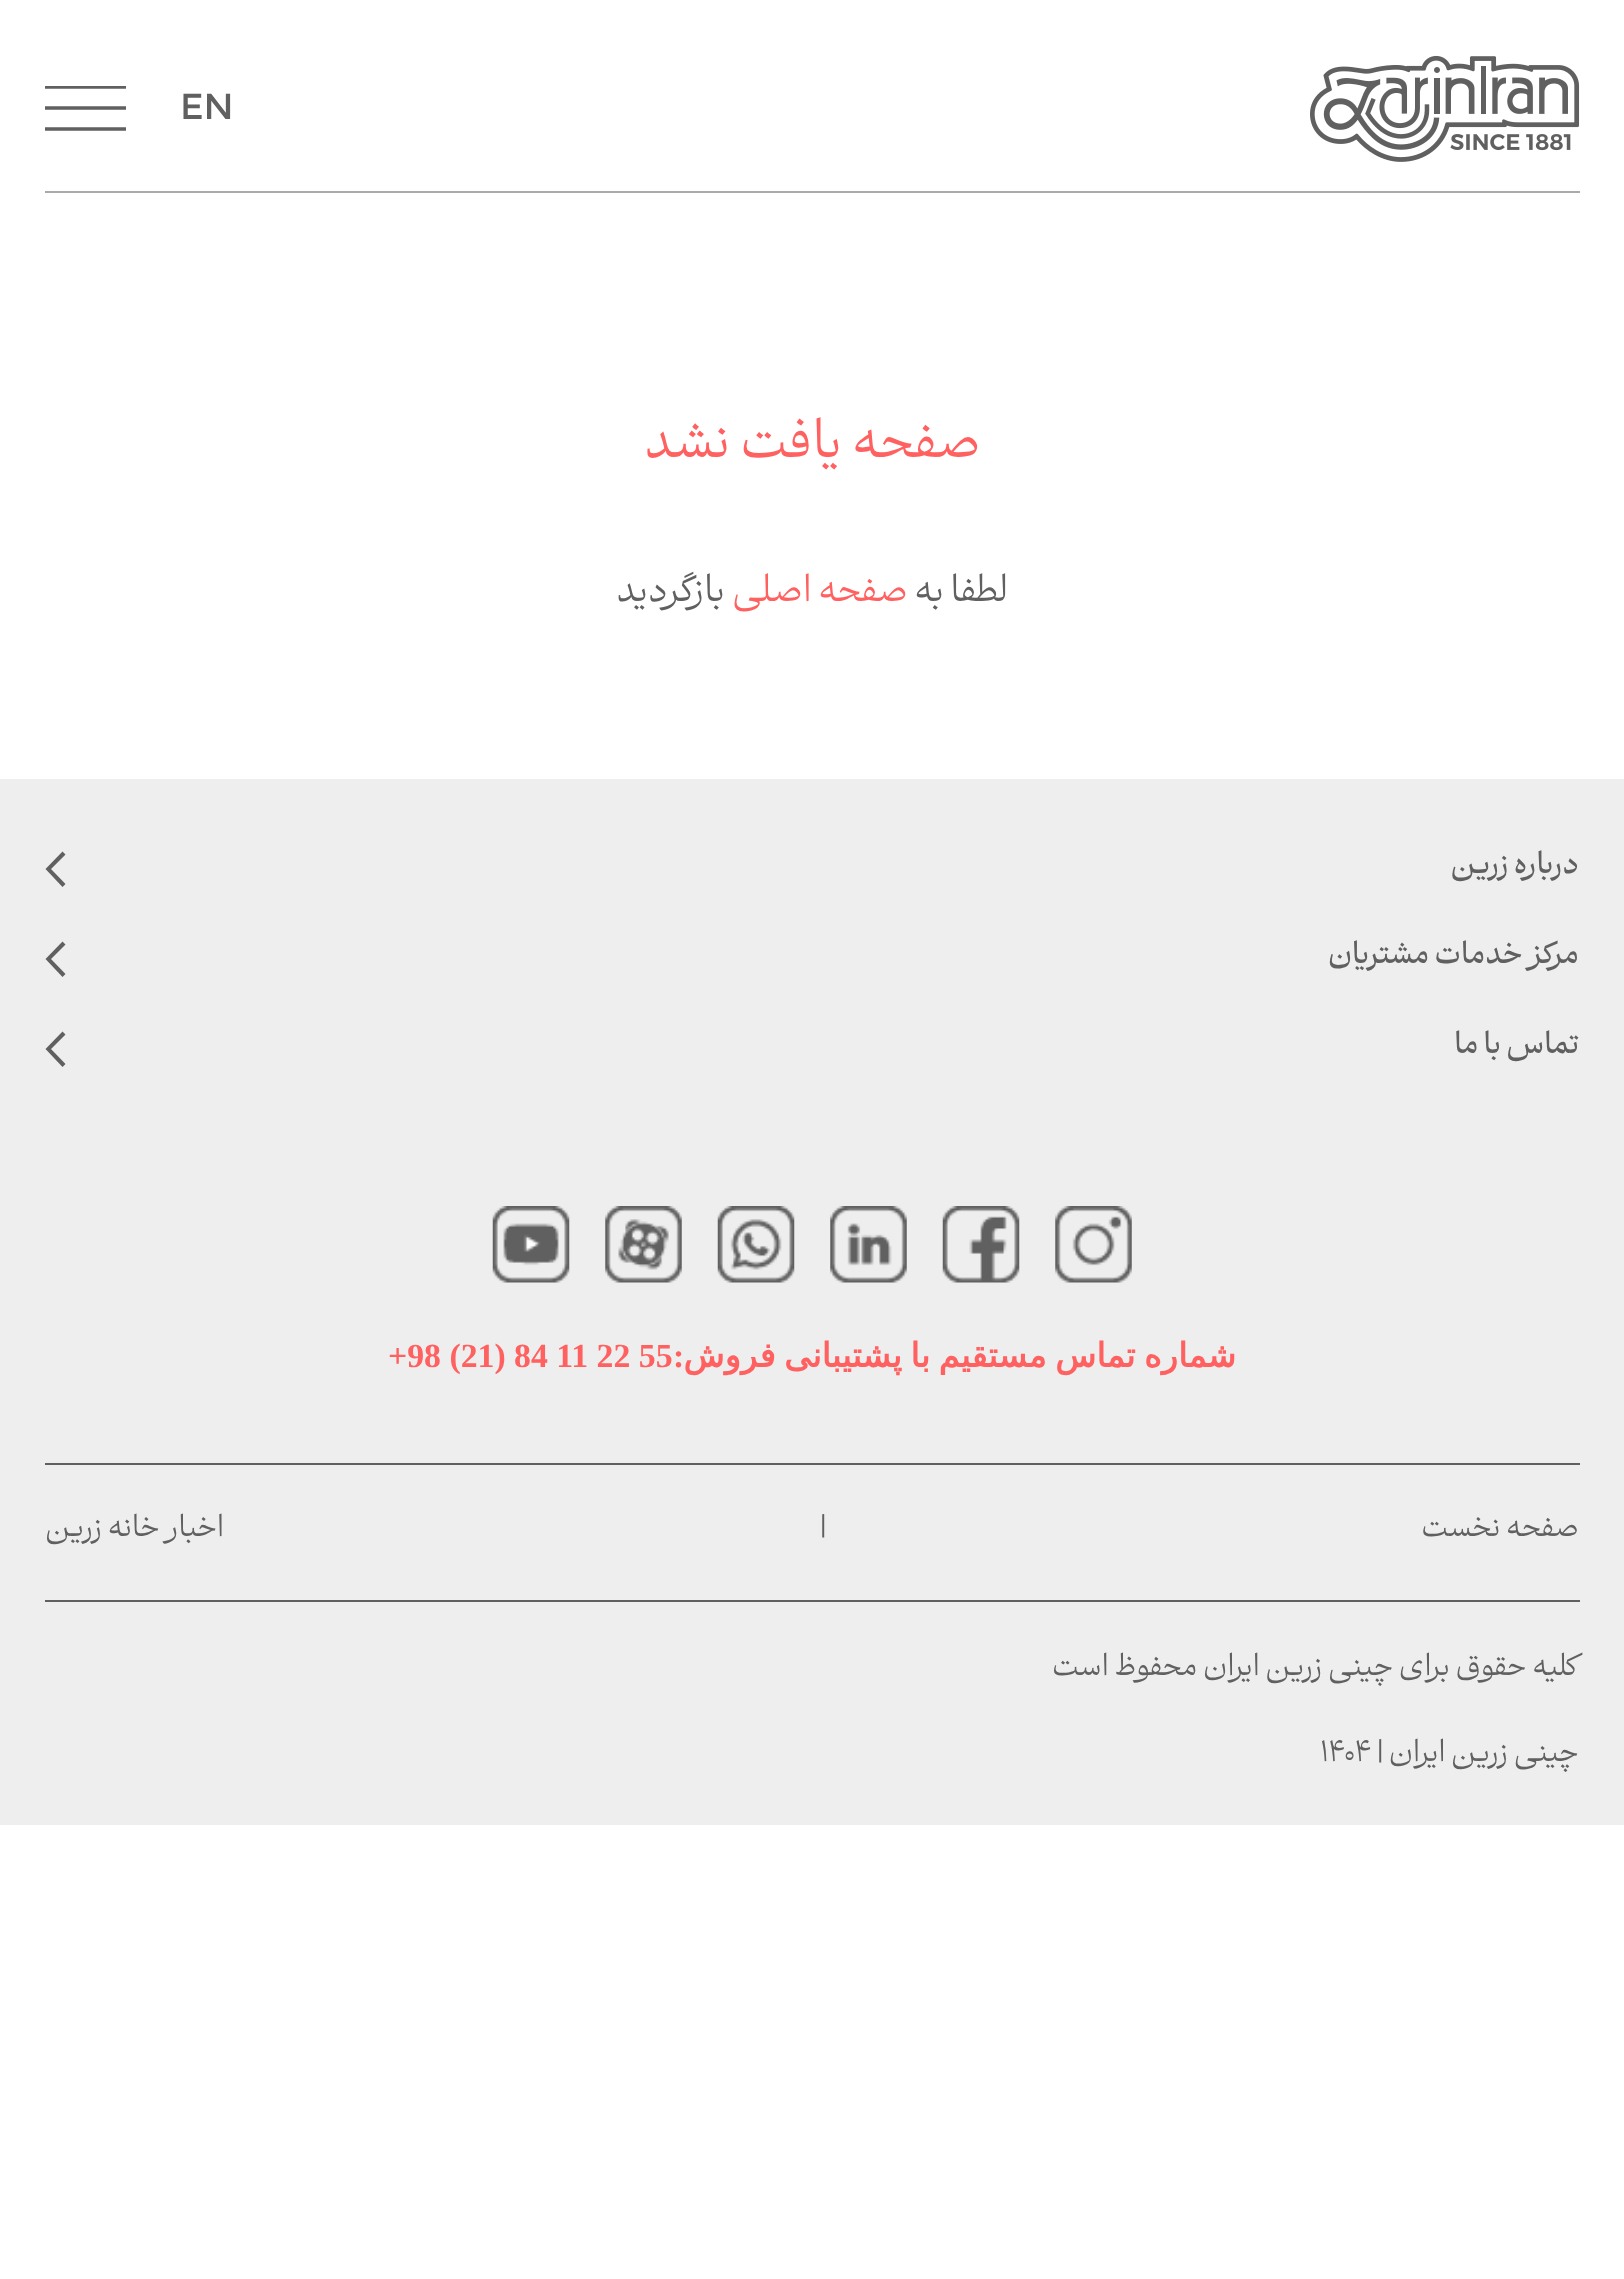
<svg xmlns="http://www.w3.org/2000/svg" width="1624" height="2279" viewBox="0 0 1624 2279">
  <defs>
    <clipPath id="clip1"><rect x="45" y="86" width="81" height="47"/></clipPath>
  </defs>
  <rect width="100%" height="100%" fill="rgb(255,255,255)"/>
  <rect x="45" y="191" width="1535" height="2" fill="rgb(170,170,170)"/>
  <image x="1310" y="55" width="270" height="107" href="pic1.png"/>
  <text x="180" y="119" font-family="Montserrat" font-size="36" fill="rgb(96,96,96)">EN</text>
  <g clip-path="url(#clip1)">
    <path d="M126 87H45M126 108H45M126 129H45" fill="none" stroke="rgb(96,96,96)" stroke-width="3.5"/>
  </g>
  <text x="981" y="457" font-family="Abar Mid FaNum" font-size="51.75" direction="rtl" fill="rgb(255,96,96)">صفحه یافت نشد</text>
  <text x="1008" y="601" font-family="Abar Mid FaNum" font-size="36" direction="rtl" fill="rgb(96,96,96)">لطفا به</text>
  <text x="908" y="601" font-family="Abar Mid FaNum" font-size="36" direction="rtl" fill="rgb(255,96,96)">صفحه اصلی</text>
  <text x="725" y="601" font-family="Abar Mid FaNum" font-size="36" direction="rtl" fill="rgb(96,96,96)">بازگردید</text>
  <rect x="0" y="779" width="1624" height="1046" fill="rgb(238,238,238)"/>
  <text x="1579" y="873" font-family="Abar Mid FaNum" font-size="29.25" font-weight="600" direction="rtl" fill="rgb(96,96,96)">درباره زرین</text>
  <path d="M51 869L65.5 854.5L62.5 851.5L45.5 869L62.5 887L65.5 884Z" fill="rgb(96,96,96)" fill-rule="evenodd"/>
  <text x="1579" y="963" font-family="Abar Mid FaNum" font-size="29.25" font-weight="600" direction="rtl" fill="rgb(96,96,96)">مرکز خدمات مشتریان</text>
  <path d="M51 959L65.5 944.5L62.5 941.5L45.5 959L62.5 977L65.5 974Z" fill="rgb(96,96,96)" fill-rule="evenodd"/>
  <text x="1579" y="1053" font-family="Abar Mid FaNum" font-size="29.25" font-weight="600" direction="rtl" fill="rgb(96,96,96)">تماس با ما</text>
  <path d="M51 1049L65.5 1034.5L62.5 1031.5L45.5 1049L62.5 1067L65.5 1064Z" fill="rgb(96,96,96)" fill-rule="evenodd"/>
  <image x="1055" y="1206" width="77" height="77" href="pic2.png"/>
  <image x="942" y="1206" width="78" height="77" href="pic3.png"/>
  <image x="830" y="1206" width="77" height="77" href="pic4.png"/>
  <image x="717" y="1206" width="78" height="77" href="pic5.png"/>
  <image x="605" y="1206" width="77" height="77" href="pic6.png"/>
  <image x="492" y="1206" width="78" height="77" href="pic7.png"/>
  <text x="1236" y="1367" word-spacing="-2.25" font-family="DejaVu Sans" font-size="33.75" font-weight="bold" direction="rtl" fill="rgb(255,96,96)">شماره تماس مستقیم با پشتیبانی فروش</text>
  <g font-family="Liberation Serif" font-size="33.75" font-weight="bold" fill="rgb(255,96,96)">
    <text x="673" y="1367">:</text>
    <text x="388" y="1367">+98 (21) 84 11 22 55</text>
  </g>
  <rect x="45" y="1463" width="1535" height="2" fill="rgb(96,96,96)"/>
  <rect x="45" y="1600" width="1535" height="2" fill="rgb(96,96,96)"/>
  <text x="1579" y="1536" font-family="Abar Mid FaNum" font-size="29.25" direction="rtl" fill="rgb(96,96,96)">صفحه نخست</text>
  <text x="820" y="1536" font-family="Abar Mid FaNum" font-size="29.25" fill="rgb(96,96,96)">|</text>
  <g font-family="Abar Mid FaNum" font-size="29.25" direction="rtl" fill="rgb(96,96,96)">
    <text x="224" y="1536">اخبار خانه زرین</text>
    <text x="1579" y="1675">کلیه حقوق برای چینی زرین ایران محفوظ است</text>
    <text x="1579" y="1761">چینی زرین ایران</text>
  </g>
  <g font-family="Abar Mid FaNum" font-size="29.25" fill="rgb(96,96,96)">
    <text x="1377" y="1761">|</text>
    <text x="1320" y="1761">1404</text>
  </g>
</svg>
